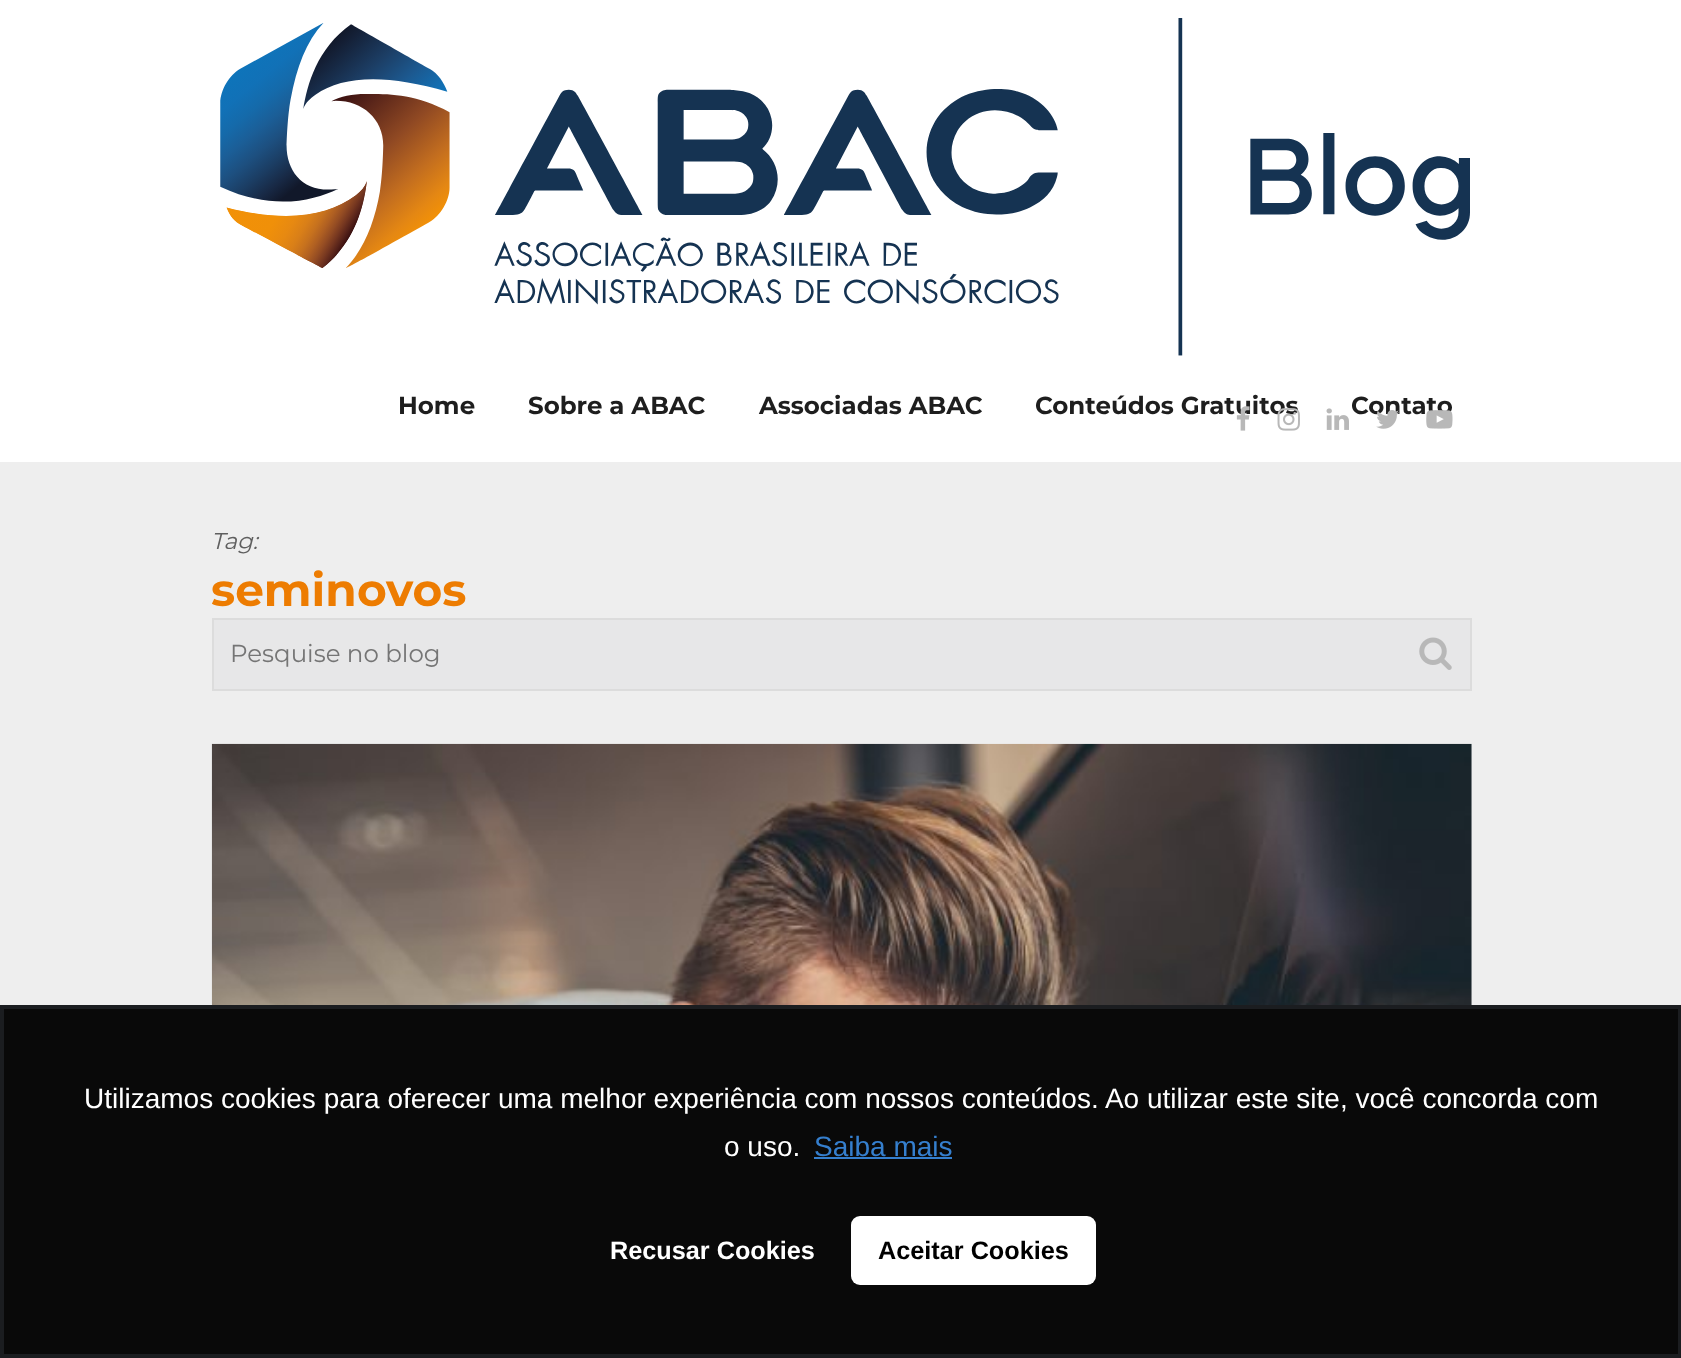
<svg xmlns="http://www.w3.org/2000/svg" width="1681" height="1358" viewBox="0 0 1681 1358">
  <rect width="100%" height="100%" fill="rgb(238,238,238)"/>
  <rect x="0" y="0" width="1681" height="462" fill="rgb(255,255,255)"/>
  <image x="220" y="18" width="1250" height="338" href="pic1.png"/>
  <g font-family="Montserrat" font-size="24.5" font-weight="bold" fill="rgb(30,30,30)">
    <text x="398" y="414">Home</text>
    <text x="528" y="414">Sobre a ABAC</text>
    <text x="759" y="414">Associadas ABAC</text>
    <text x="1035" y="414">Conteúdos Gratuitos</text>
    <text x="1351" y="414">Contato</text>
  </g>
  <image x="1236" y="406" width="14" height="25" href="pic2.png"/>
  <image x="1277" y="408" width="23" height="23" href="pic3.png"/>
  <image x="1326" y="408" width="23" height="22" href="pic4.png"/>
  <image x="1376" y="410" width="23" height="19" href="pic5.png"/>
  <image x="1426" y="410" width="27" height="19" href="pic6.png"/>
  <text x="211" y="549" font-family="Montserrat" font-size="23" font-style="italic" fill="rgb(95,95,95)">Tag:</text>
  <text x="211" y="606" font-family="Montserrat" font-size="45.5" font-weight="bold" fill="rgb(237,124,1)">seminovos</text>
  <rect x="213" y="619" width="1258" height="71" fill="rgb(231,231,232)" stroke="rgb(220,220,220)" stroke-width="2"/>
  <text x="230" y="662" font-family="Montserrat" font-size="24.5" fill="rgb(117,117,117)">Pesquise no blog</text>
  <image x="1419" y="637" width="33" height="33" href="pic7.png"/>
  <rect x="1471" y="744" width="1" height="261" fill="rgb(255,255,255)"/>
  <image x="211" y="743" width="1261" height="262" href="pic8.png"/>
  <rect x="2" y="1007" width="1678" height="349" fill="rgb(9,9,9)" stroke="rgb(27,29,32)" stroke-width="4"/>
  <g font-family="Liberation Sans" font-size="28" fill="rgb(255,255,255)">
    <text x="84" y="1108">Utilizamos cookies para oferecer uma melhor experiência com nossos conteúdos. Ao utilizar este site, você concorda com</text>
    <text x="724" y="1156">o uso.</text>
  </g>
  <text x="814" y="1156" font-family="Liberation Sans" font-size="28" fill="rgb(53,127,206)">Saiba mais</text>
  <rect x="814" y="1157" width="138" height="2" fill="rgb(53,127,206)"/>
  <text x="610" y="1259" font-family="Liberation Sans" font-size="25.25" font-weight="bold" fill="rgb(255,255,255)">Recusar Cookies</text>
  <rect x="851" y="1216" width="245" height="69" rx="9" fill="rgb(255,255,255)"/>
  <text x="878" y="1259" font-family="Liberation Sans" font-size="25.25" font-weight="bold" fill="rgb(0,0,0)">Aceitar Cookies</text>
</svg>
